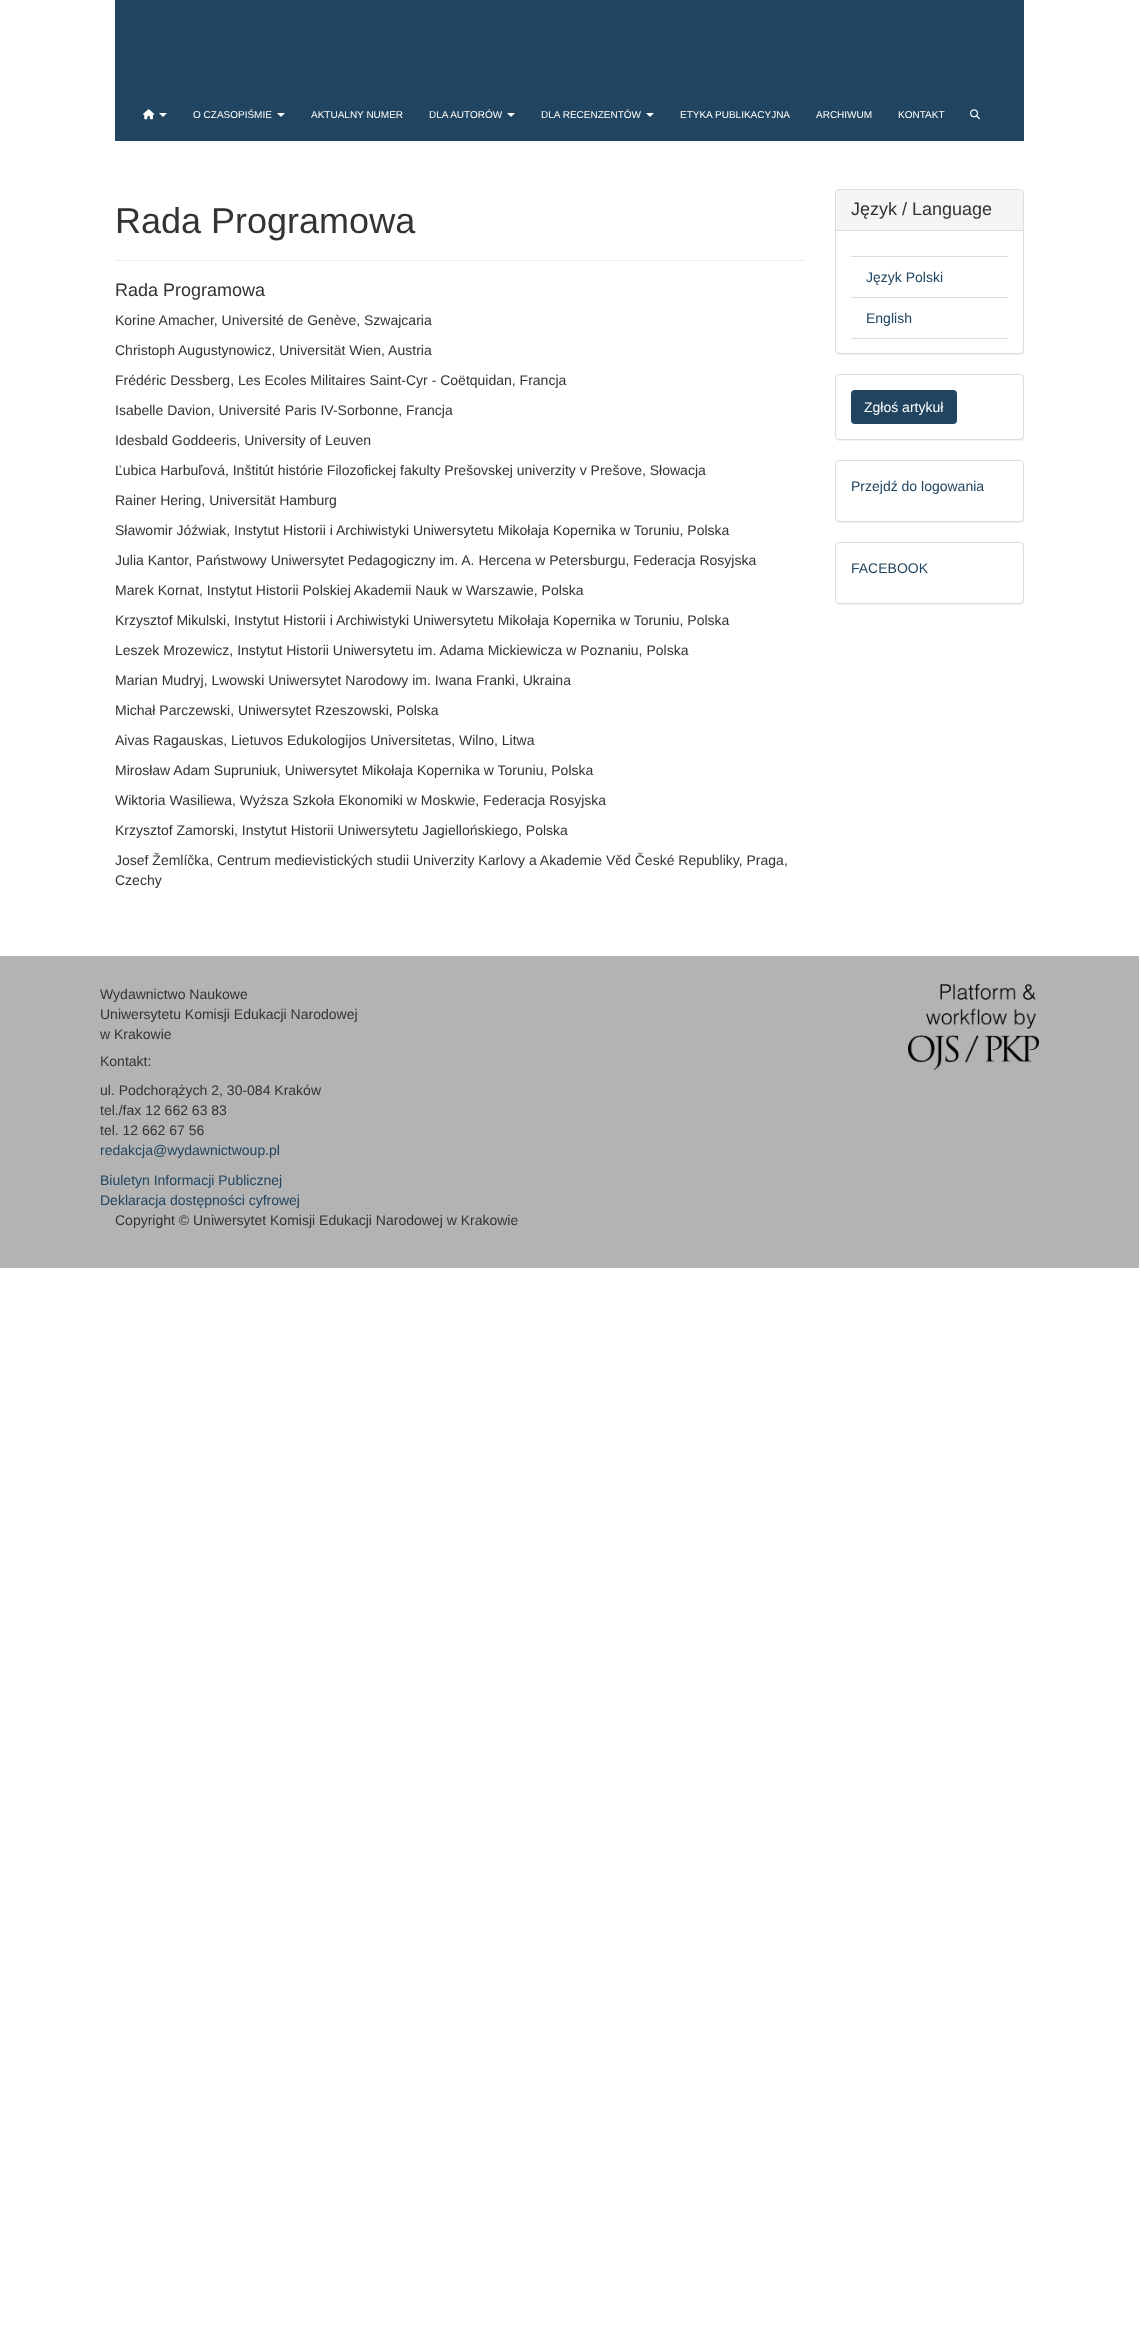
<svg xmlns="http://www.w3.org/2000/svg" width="1139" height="2345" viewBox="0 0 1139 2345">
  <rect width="100%" height="100%" fill="rgb(255,255,255)"/>
  <rect x="115" y="0" width="909" height="141" fill="rgb(33,69,96)"/>
  <image x="143" y="109" width="12" height="11" href="pic1.png"/>
  <path d="M159 113H167L163 117Z" fill="rgb(255,255,255)"/>
  <text x="193" y="118" font-family="Liberation Sans" font-size="10" fill="rgb(255,255,255)">O CZASOPIŚMIE</text>
  <path d="M277 113H285L281 117Z" fill="rgb(255,255,255)"/>
  <g font-family="Liberation Sans" font-size="10" fill="rgb(255,255,255)">
    <text x="311" y="118">AKTUALNY NUMER</text>
    <text x="429" y="118">DLA AUTORÓW</text>
  </g>
  <path d="M507 113H515L511 117Z" fill="rgb(255,255,255)"/>
  <text x="541" y="118" font-family="Liberation Sans" font-size="10" fill="rgb(255,255,255)">DLA RECENZENTÓW</text>
  <path d="M646 113H654L650 117Z" fill="rgb(255,255,255)"/>
  <g font-family="Liberation Sans" font-size="10" fill="rgb(255,255,255)">
    <text x="680" y="118">ETYKA PUBLIKACYJNA</text>
    <text x="816" y="118">ARCHIWUM</text>
    <text x="898" y="118">KONTAKT</text>
  </g>
  <image x="970" y="109" width="10" height="11" href="pic2.png"/>
  <rect x="115" y="260" width="690" height="1" fill="rgb(238,238,238)"/>
  <text x="115" y="233" font-family="Liberation Sans" font-size="36" fill="rgb(51,51,51)">Rada Programowa</text>
  <text x="115" y="296" font-family="Liberation Sans" font-size="18" fill="rgb(51,51,51)">Rada Programowa</text>
  <g font-family="Liberation Sans" font-size="14" fill="rgb(51,51,51)">
    <text x="115" y="325">Korine Amacher, Université de Genève, Szwajcaria</text>
    <text x="115" y="355">Christoph Augustynowicz, Universität Wien, Austria</text>
    <text x="115" y="385">Frédéric Dessberg, Les Ecoles Militaires Saint-Cyr - Coëtquidan, Francja</text>
    <text x="115" y="415">Isabelle Davion, Université Paris IV-Sorbonne, Francja</text>
    <text x="115" y="445">Idesbald Goddeeris, University of Leuven</text>
    <text x="115" y="475">Ľubica Harbuľová, Inštitút histórie Filozofickej fakulty Prešovskej univerzity v Prešove, Słowacja</text>
    <text x="115" y="505">Rainer Hering, Universität Hamburg</text>
    <text x="115" y="535">Sławomir Jóźwiak, Instytut Historii i Archiwistyki Uniwersytetu Mikołaja Kopernika w Toruniu, Polska</text>
    <text x="115" y="565">Julia Kantor, Państwowy Uniwersytet Pedagogiczny im. A. Hercena w Petersburgu, Federacja Rosyjska</text>
    <text x="115" y="595">Marek Kornat, Instytut Historii Polskiej Akademii Nauk w Warszawie, Polska</text>
    <text x="115" y="625">Krzysztof Mikulski, Instytut Historii i Archiwistyki Uniwersytetu Mikołaja Kopernika w Toruniu, Polska</text>
    <text x="115" y="655">Leszek Mrozewicz, Instytut Historii Uniwersytetu im. Adama Mickiewicza w Poznaniu, Polska</text>
    <text x="115" y="685">Marian Mudryj, Lwowski Uniwersytet Narodowy im. Iwana Franki, Ukraina</text>
    <text x="115" y="715">Michał Parczewski, Uniwersytet Rzeszowski, Polska</text>
    <text x="115" y="745">Aivas Ragauskas, Lietuvos Edukologijos Universitetas, Wilno, Litwa</text>
    <text x="115" y="775">Mirosław Adam Supruniuk, Uniwersytet Mikołaja Kopernika w Toruniu, Polska</text>
    <text x="115" y="805">Wiktoria Wasiliewa, Wyższa Szkoła Ekonomiki w Moskwie, Federacja Rosyjska</text>
    <text x="115" y="835">Krzysztof Zamorski, Instytut Historii Uniwersytetu Jagiellońskiego, Polska</text>
    <text>
      <tspan x="115" y="865">Josef Žemlíčka, Centrum medievistických studii Univerzity Karlovy a Akademie Věd České Republiky, Praga,</tspan>
      <tspan x="115" y="885">Czechy</tspan>
    </text>
  </g>
  <rect x="835" y="190" width="189" height="165" rx="4" fill="rgba(0,0,0,0.05)" filter="blur(0.5px)"/>
  <rect x="835.5" y="189.5" width="188" height="164" rx="3.5" fill="rgb(255,255,255)" stroke="rgb(221,221,221)"/>
  <path d="M839 190H1020C1021.5 190 1023 191.5 1023 193V231H836V193C836 191.5 837.5 190 839 190Z" fill="rgb(245,245,245)"/>
  <rect x="836" y="230" width="187" height="1" fill="rgb(221,221,221)"/>
  <text x="851" y="215" font-family="Liberation Sans" font-size="18" fill="rgb(51,51,51)">Język / Language</text>
  <rect x="851" y="256" width="157" height="1" fill="rgb(221,221,221)"/>
  <rect x="851" y="297" width="157" height="1" fill="rgb(221,221,221)"/>
  <text x="866" y="282" font-family="Liberation Sans" font-size="14" fill="rgb(33,69,96)">Język Polski</text>
  <rect x="851" y="338" width="157" height="1" fill="rgb(221,221,221)"/>
  <text x="866" y="323" font-family="Liberation Sans" font-size="14" fill="rgb(33,69,96)">English</text>
  <rect x="835" y="375" width="189" height="66" rx="4" fill="rgba(0,0,0,0.05)" filter="blur(0.5px)"/>
  <rect x="835.5" y="374.5" width="188" height="65" rx="3.5" fill="rgb(255,255,255)" stroke="rgb(221,221,221)"/>
  <rect x="851" y="390" width="106" height="34" rx="4" fill="rgb(33,69,96)"/>
  <text x="864" y="412" font-family="Liberation Sans" font-size="14" fill="rgb(255,255,255)">Zgłoś artykuł</text>
  <rect x="835" y="461" width="189" height="62" rx="4" fill="rgba(0,0,0,0.05)" filter="blur(0.5px)"/>
  <rect x="835.5" y="460.5" width="188" height="61" rx="3.5" fill="rgb(255,255,255)" stroke="rgb(221,221,221)"/>
  <text x="851" y="491" font-family="Liberation Sans" font-size="14" fill="rgb(33,69,96)">Przejdź do logowania</text>
  <rect x="835" y="543" width="189" height="62" rx="4" fill="rgba(0,0,0,0.05)" filter="blur(0.5px)"/>
  <rect x="835.5" y="542.5" width="188" height="61" rx="3.5" fill="rgb(255,255,255)" stroke="rgb(221,221,221)"/>
  <text x="851" y="573" font-family="Liberation Sans" font-size="14" fill="rgb(33,69,96)">FACEBOOK</text>
  <rect x="0" y="956" width="1139" height="312" fill="rgb(179,179,179)"/>
  <g font-family="Liberation Sans" font-size="14" fill="rgb(51,51,51)">
    <text>
      <tspan x="100" y="999">Wydawnictwo Naukowe</tspan>
      <tspan x="100" y="1019">Uniwersytetu Komisji Edukacji Narodowej</tspan>
      <tspan x="100" y="1039">w Krakowie</tspan>
      <tspan x="100" y="1066">Kontakt:</tspan>
    </text>
    <text>
      <tspan x="100" y="1095">ul. Podchorążych 2, 30-084 Kraków</tspan>
      <tspan x="100" y="1115">tel./fax 12 662 63 83</tspan>
      <tspan x="100" y="1135">tel. 12 662 67 56</tspan>
    </text>
  </g>
  <g font-family="Liberation Sans" font-size="14" fill="rgb(33,69,96)">
    <text x="100" y="1155">redakcja@wydawnictwoup.pl</text>
    <text>
      <tspan x="100" y="1185">Biuletyn Informacji Publicznej</tspan>
      <tspan x="100" y="1205">Deklaracja dostępności cyfrowej</tspan>
    </text>
  </g>
  <text x="115" y="1225" font-family="Liberation Sans" font-size="14" fill="rgb(51,51,51)">Copyright © Uniwersytet Komisji Edukacji Narodowej w Krakowie</text>
  <image x="908" y="984" width="131" height="86" href="pic3.png"/>
</svg>
